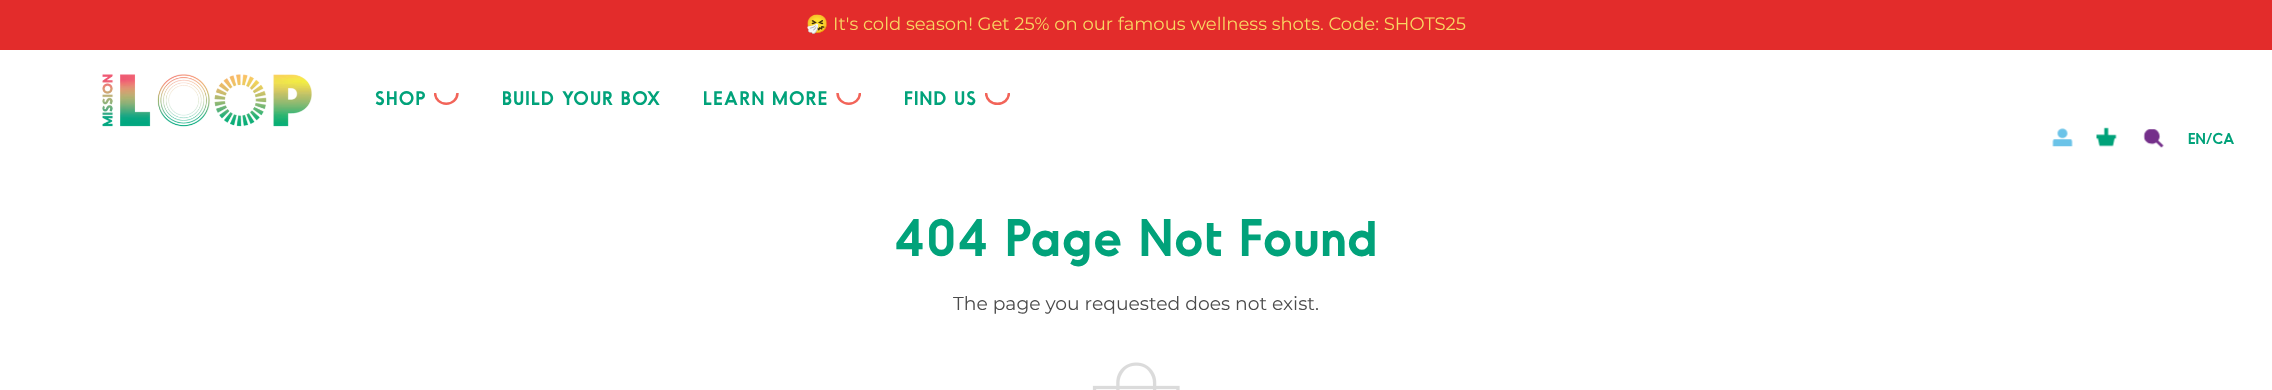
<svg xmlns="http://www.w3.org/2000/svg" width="2272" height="390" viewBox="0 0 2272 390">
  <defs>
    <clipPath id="clip1"><rect x="434" y="93" width="25" height="12"/></clipPath>
    <clipPath id="clip2"><rect x="836" y="93" width="25" height="12"/></clipPath>
    <clipPath id="clip3"><rect x="985" y="93" width="25" height="12"/></clipPath>
  </defs>
  <rect width="100%" height="100%" fill="rgb(255,255,255)"/>
  <rect x="0" y="0" width="2272" height="50" fill="rgb(227,44,43)"/>
  <text x="806" y="30" font-family="Noto Color Emoji" font-size="18" fill="rgb(249,215,99)">🤧</text>
  <text x="833" y="30" font-family="Montserrat" font-size="18" font-weight="100" fill="rgb(249,215,99)">It's cold season! Get 25% on our famous wellness shots. Code: SHOTS25</text>
  <image x="102" y="74" width="210" height="53" href="pic1.png"/>
  <text x="375" y="105" font-family="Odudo" font-size="18.75" font-weight="600" letter-spacing="1.25" fill="rgb(1,162,122)">SHOP</text>
  <g clip-path="url(#clip1)">
    <path d="M457.5 92.5C457.5 107.5 435 107.5 435 92.5" fill="none" stroke="rgb(242,100,89)" stroke-width="2.5"/>
  </g>
  <g font-family="Odudo" font-size="18.75" font-weight="600" letter-spacing="1.25" fill="rgb(1,162,122)">
    <text x="502" y="105">BUILD YOUR BOX</text>
    <text x="703" y="105">LEARN MORE</text>
  </g>
  <g clip-path="url(#clip2)">
    <path d="M860 92.5C860 107.5 837.5 107.5 837.5 92.5" fill="none" stroke="rgb(242,100,89)" stroke-width="2.5"/>
  </g>
  <text x="904" y="105" font-family="Odudo" font-size="18.75" font-weight="600" letter-spacing="1.25" fill="rgb(1,162,122)">FIND US</text>
  <g clip-path="url(#clip3)">
    <path d="M1009 92.5C1009 107.5 986 107.5 986 92.5" fill="none" stroke="rgb(242,100,89)" stroke-width="2.5"/>
  </g>
  <image x="2052" y="128" width="21" height="19" href="pic2.png"/>
  <image x="2096" y="127" width="21" height="20" href="pic3.png"/>
  <image x="2143" y="129" width="21" height="19" href="pic4.png"/>
  <text x="2188" y="144" font-family="Odudo" font-size="15" font-weight="600" fill="rgb(1,162,122)">EN/CA</text>
  <text x="894" y="256" font-family="Odudo" font-size="50" font-weight="600" letter-spacing="1.25" fill="rgb(1,162,122)">404 Page Not Found</text>
  <text x="953" y="310" font-family="Montserrat" font-size="18.75" font-weight="100" fill="rgb(75,75,75)">The page you requested does not exist.</text>
  <image x="1092" y="362" width="88" height="28" href="pic5.png"/>
</svg>
